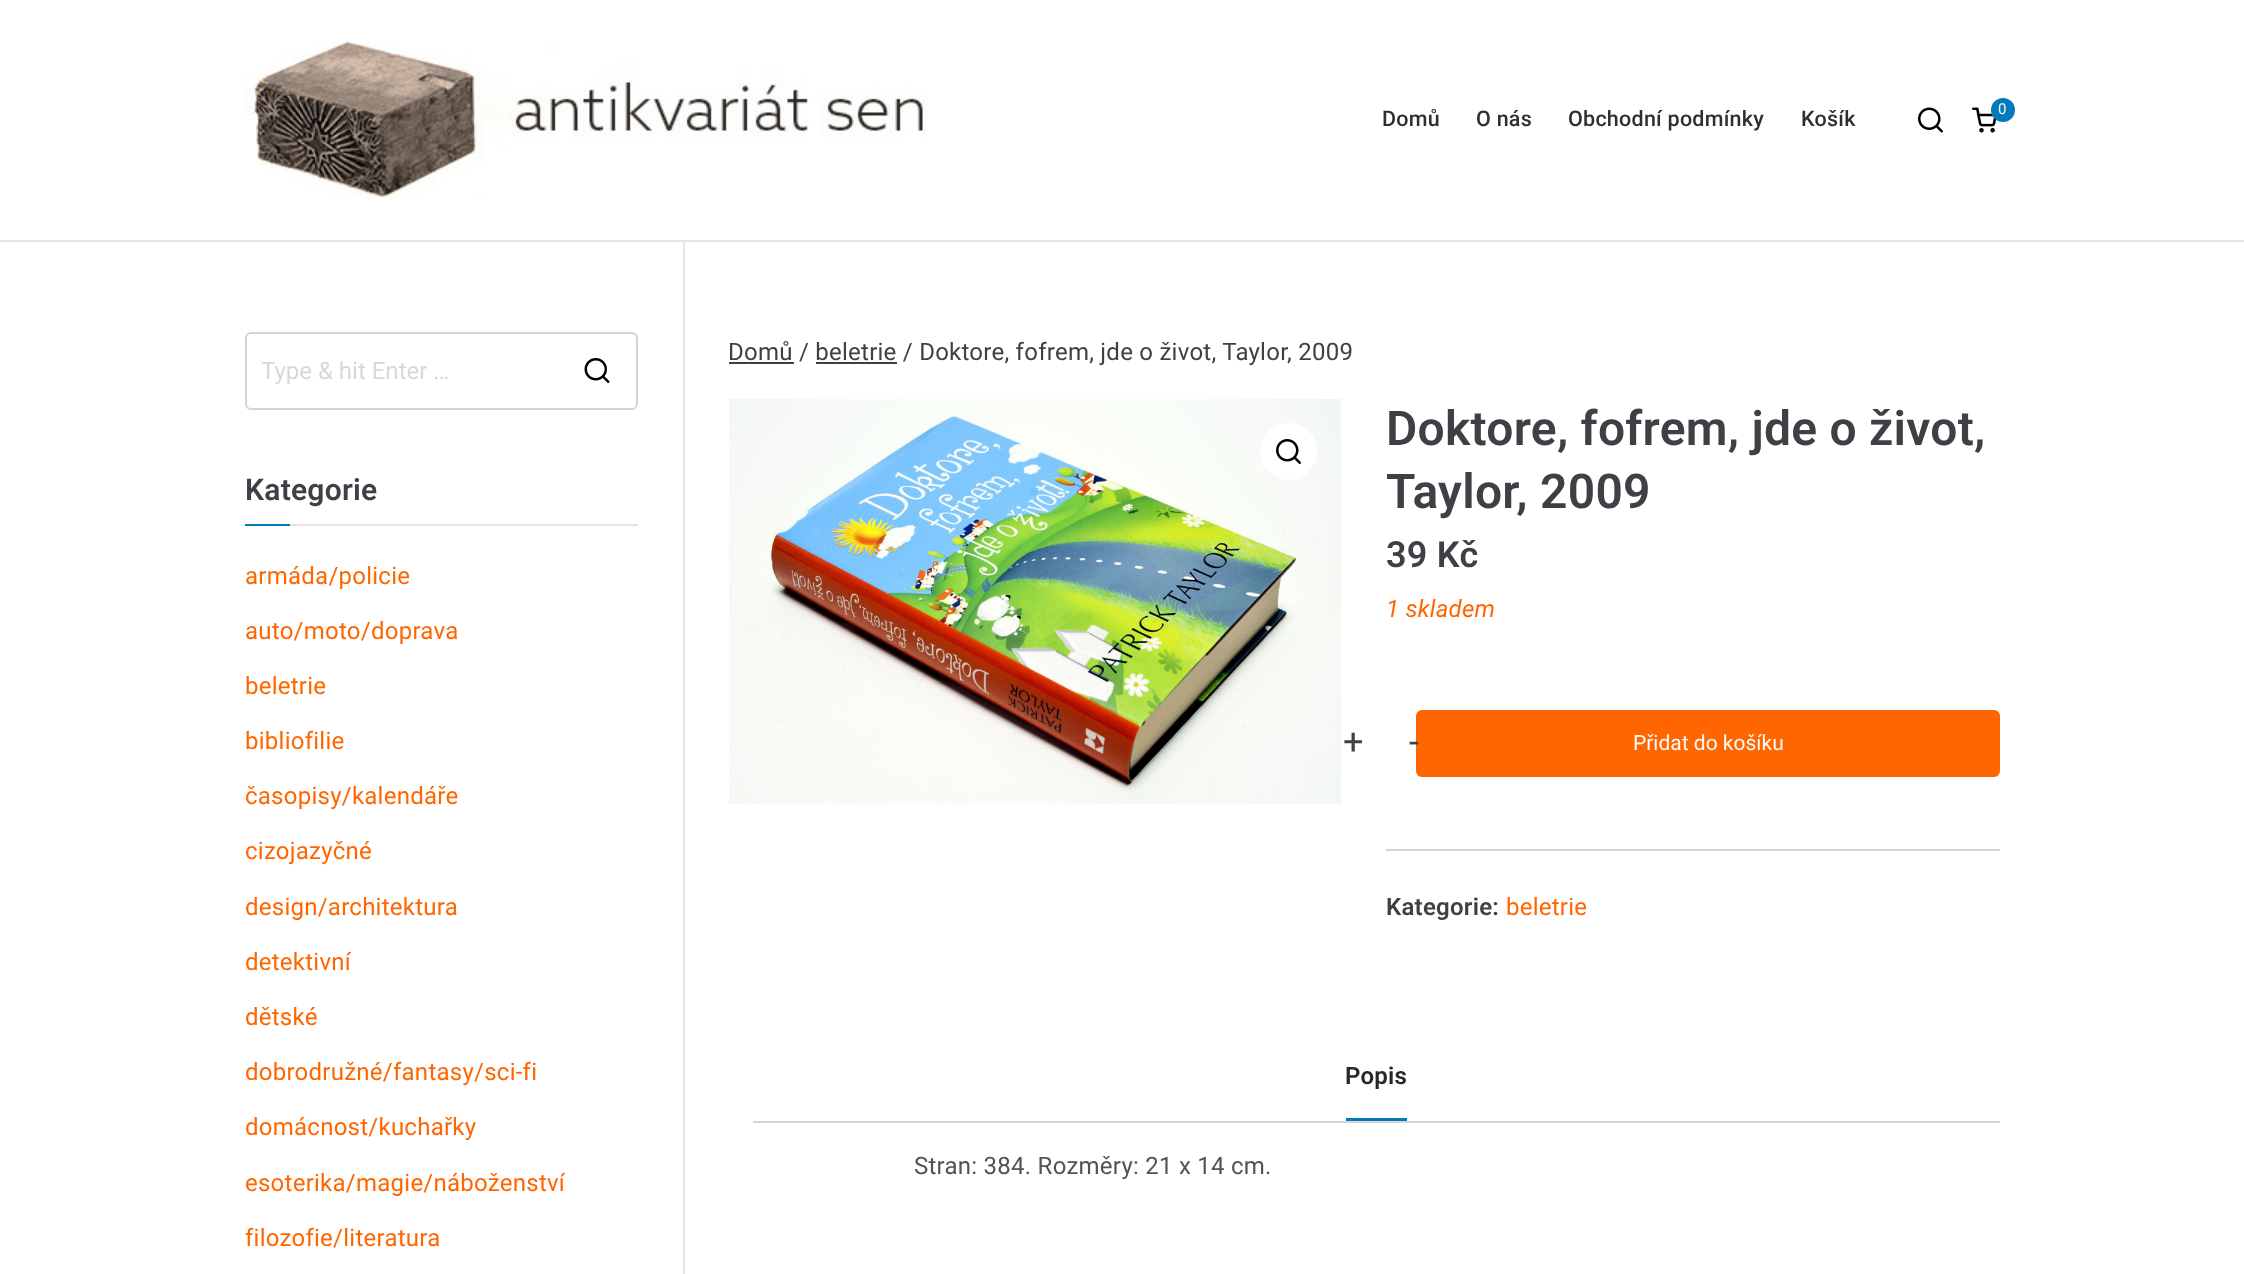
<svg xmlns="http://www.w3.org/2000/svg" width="2244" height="1274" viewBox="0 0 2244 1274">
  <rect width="100%" height="100%" fill="rgb(228,228,231)"/>
  <rect x="0" y="0" width="2244" height="240" fill="rgb(255,255,255)"/>
  <image x="244" y="41" width="683" height="158" href="pic1.png"/>
  <g font-family="Roboto" font-size="21.5" font-weight="500" letter-spacing="0.25" fill="rgb(45,47,49)">
    <text x="1382" y="126">Domů</text>
    <text x="1476" y="126">O nás</text>
    <text x="1568" y="126">Obchodní podmínky</text>
    <text x="1801" y="126">Košík</text>
  </g>
  <image x="1918" y="107" width="25" height="26" href="pic2.png"/>
  <image x="1972" y="107" width="25" height="26" href="pic3.png"/>
  <circle cx="2003" cy="110" r="12" fill="rgb(2,122,187)"/>
  <text x="1998" y="114" font-family="Roboto" font-size="15" letter-spacing="0.25" fill="rgb(250,250,250)">0</text>
  <rect x="0" y="242" width="2244" height="1032" fill="rgb(255,255,255)"/>
  <rect x="683" y="242" width="2" height="1032" fill="rgb(228,228,231)"/>
  <rect x="246" y="333" width="391" height="76" rx="5" fill="none" stroke="rgb(212,212,216)" stroke-width="2"/>
  <text x="261" y="379" font-family="Roboto" font-size="24" fill="rgb(216,216,220)">Type &amp; hit Enter …</text>
  <image x="584" y="358" width="26" height="25" href="pic4.png"/>
  <rect x="290" y="524" width="348" height="2" fill="rgb(228,228,231)"/>
  <text x="245" y="500" font-family="Roboto" font-size="30" font-weight="600" letter-spacing="0.25" fill="rgb(63,63,70)">Kategorie</text>
  <rect x="245" y="524" width="45" height="2" fill="rgb(2,122,187)"/>
  <g font-family="Roboto" font-size="24" letter-spacing="0.25" fill="rgb(255,102,0)">
    <text x="245" y="584">armáda/policie</text>
    <text x="245" y="639">auto/moto/doprava</text>
    <text x="245" y="694">beletrie</text>
    <text x="245" y="749">bibliofilie</text>
    <text x="245" y="804">časopisy/kalendáře</text>
    <text x="245" y="859">cizojazyčné</text>
    <text x="245" y="915">design/architektura</text>
    <text x="245" y="970">detektivní</text>
    <text x="245" y="1025">dětské</text>
    <text x="245" y="1080">dobrodružné/fantasy/sci-fi</text>
    <text x="245" y="1135">domácnost/kuchařky</text>
    <text x="245" y="1191">esoterika/magie/náboženství</text>
    <text x="245" y="1246">filozofie/literatura</text>
  </g>
  <rect x="729" y="362" width="65" height="2" fill="rgb(63,63,70)"/>
  <text x="728" y="360" font-family="Roboto" font-size="24" letter-spacing="0.25" fill="rgb(63,63,70)">Domů / beletrie / Doktore, fofrem, jde o život, Taylor, 2009</text>
  <rect x="816" y="362" width="81" height="2" fill="rgb(63,63,70)"/>
  <image x="729" y="399" width="612" height="405" href="pic5.png"/>
  <circle cx="1288.5" cy="451.5" r="28.5" fill="rgb(255,255,255)"/>
  <image x="1276" y="439" width="25" height="25" href="pic6.png"/>
  <g font-family="Roboto" font-size="48" font-weight="600" letter-spacing="0.25" fill="rgb(63,63,70)">
    <text>
      <tspan x="1386" y="445">Doktore, fofrem, jde o život,</tspan>
      <tspan x="1386" y="508">Taylor, 2009</tspan>
    </text>
  </g>
  <text x="1386" y="567" font-family="Roboto" font-size="36" font-weight="600" letter-spacing="0.25" fill="rgb(63,63,70)">39 Kč</text>
  <text x="1386" y="617" font-family="Roboto" font-size="24" font-style="italic" letter-spacing="0.25" fill="rgb(255,102,0)">1 skladem</text>
  <text x="1343" y="754" font-family="Roboto" font-size="36" fill="rgb(63,63,70)">+</text>
  <rect x="1416" y="710" width="584" height="67" rx="6" fill="rgb(255,102,0)"/>
  <text x="1409" y="754" font-family="Roboto" font-size="36" fill="rgb(63,63,70)">-</text>
  <text x="1633" y="750" font-family="Roboto" font-size="21" fill="rgb(250,250,250)">Přidat do košíku</text>
  <rect x="1386" y="849" width="614" height="2" fill="rgb(212,212,216)"/>
  <text x="1386" y="915" font-family="Roboto" font-size="24" font-weight="600" letter-spacing="0.25" fill="rgb(63,63,70)">Kategorie:</text>
  <text x="1506" y="915" font-family="Roboto" font-size="24" letter-spacing="0.25" fill="rgb(255,102,0)">beletrie</text>
  <rect x="753" y="1121" width="1247" height="2" fill="rgb(212,212,216)"/>
  <rect x="1346" y="1118" width="61" height="3" fill="rgb(2,122,187)"/>
  <text x="1345" y="1084" font-family="Roboto" font-size="24" font-weight="600" letter-spacing="0.25" fill="rgb(39,39,42)">Popis</text>
  <text x="914" y="1174" font-family="Roboto" font-size="24" letter-spacing="0.25" fill="rgb(82,82,91)">Stran: 384. Rozměry: 21 x 14 cm.</text>
</svg>
